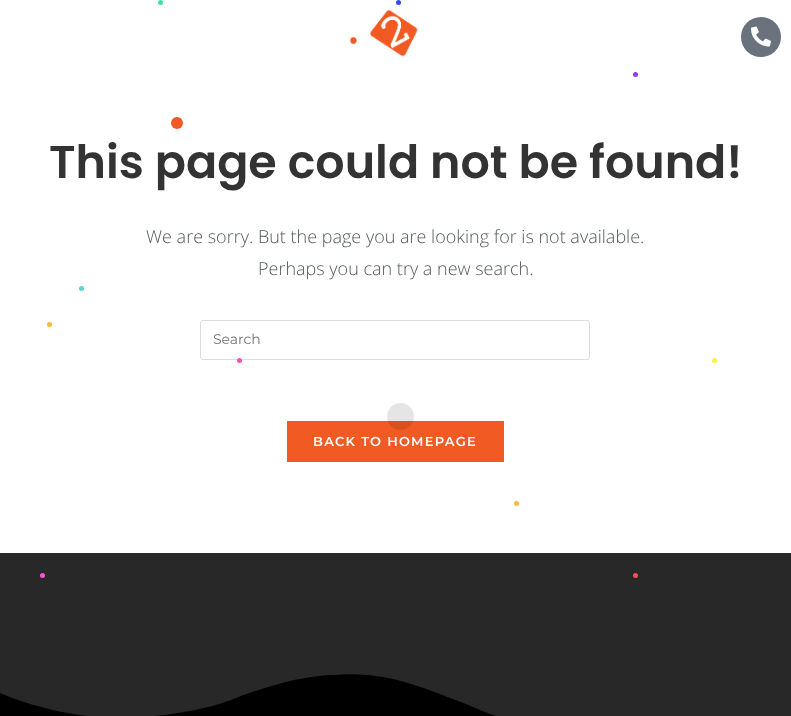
<svg xmlns="http://www.w3.org/2000/svg" width="791" height="716" viewBox="0 0 791 716">
  <rect width="100%" height="100%" fill="rgb(255,255,255)"/>
  <circle cx="160.5" cy="2.5" r="2.5" fill="rgb(61,228,163)"/>
  <circle cx="398.5" cy="2.5" r="2.5" fill="rgb(44,74,255)"/>
  <circle cx="635.5" cy="74.5" r="2.5" fill="rgb(143,61,228)"/>
  <circle cx="81.5" cy="288.5" r="2.5" fill="rgb(94,213,203)"/>
  <circle cx="49.5" cy="324.5" r="2.5" fill="rgb(255,183,57)"/>
  <rect x="200.5" y="320.5" width="389" height="39" rx="2.5" fill="none" stroke="rgb(221,221,221)"/>
  <circle cx="239.5" cy="360.5" r="2.5" fill="rgb(252,79,177)"/>
  <circle cx="714.5" cy="360.5" r="2.5" fill="rgb(255,243,57)"/>
  <circle cx="516.5" cy="503.5" r="2.5" fill="rgb(255,183,57)"/>
  <rect x="0" y="553" width="791" height="163" fill="rgb(40,40,40)"/>
  <circle cx="42.5" cy="575.5" r="2.5" fill="rgb(252,79,221)"/>
  <circle cx="635.5" cy="575.5" r="2.5" fill="rgb(252,79,79)"/>
  <circle cx="177" cy="123" r="6" fill="rgb(241,90,34)"/>
  <rect x="287" y="421" width="217" height="41" fill="rgb(241,90,34)"/>
  <circle cx="400.5" cy="416.5" r="13.5" fill="rgba(0,0,0,0.1)"/>
  <path d="M625 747C578 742 533 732 473 707C449 697 412 683 393 679C375 675 352 673 334 675C326 675 316 676 294 680C273 685 248 693 231 700C199 712 156 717 125 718C57 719 0 693 0 693V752H791V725C739 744 681 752 625 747Z" fill="rgb(0,0,0)"/>
  <image x="349" y="10" width="69" height="47" href="pic1.png"/>
  <circle cx="761" cy="37" r="20" fill="rgb(105,114,125)"/>
  <image x="751" y="26" width="20" height="21" href="pic2.png"/>
  <text x="49" y="178" font-family="Poppins" font-size="46" font-weight="600" fill="rgb(51,51,51)">This page could not be found!</text>
  <g font-family="Open Sans" font-size="18" font-weight="300" fill="rgb(84,89,95)">
    <text x="146" y="243">We are sorry. But the page you are looking for is not available.</text>
    <text x="258" y="275">Perhaps you can try a new search.</text>
  </g>
  <text x="213" y="344" font-family="Montserrat" font-size="14" fill="rgb(117,117,117)">Search</text>
  <text x="313" y="446" font-family="Montserrat" font-size="13" font-weight="600" letter-spacing="1.25" fill="rgb(255,255,255)">BACK TO HOMEPAGE</text>
</svg>
